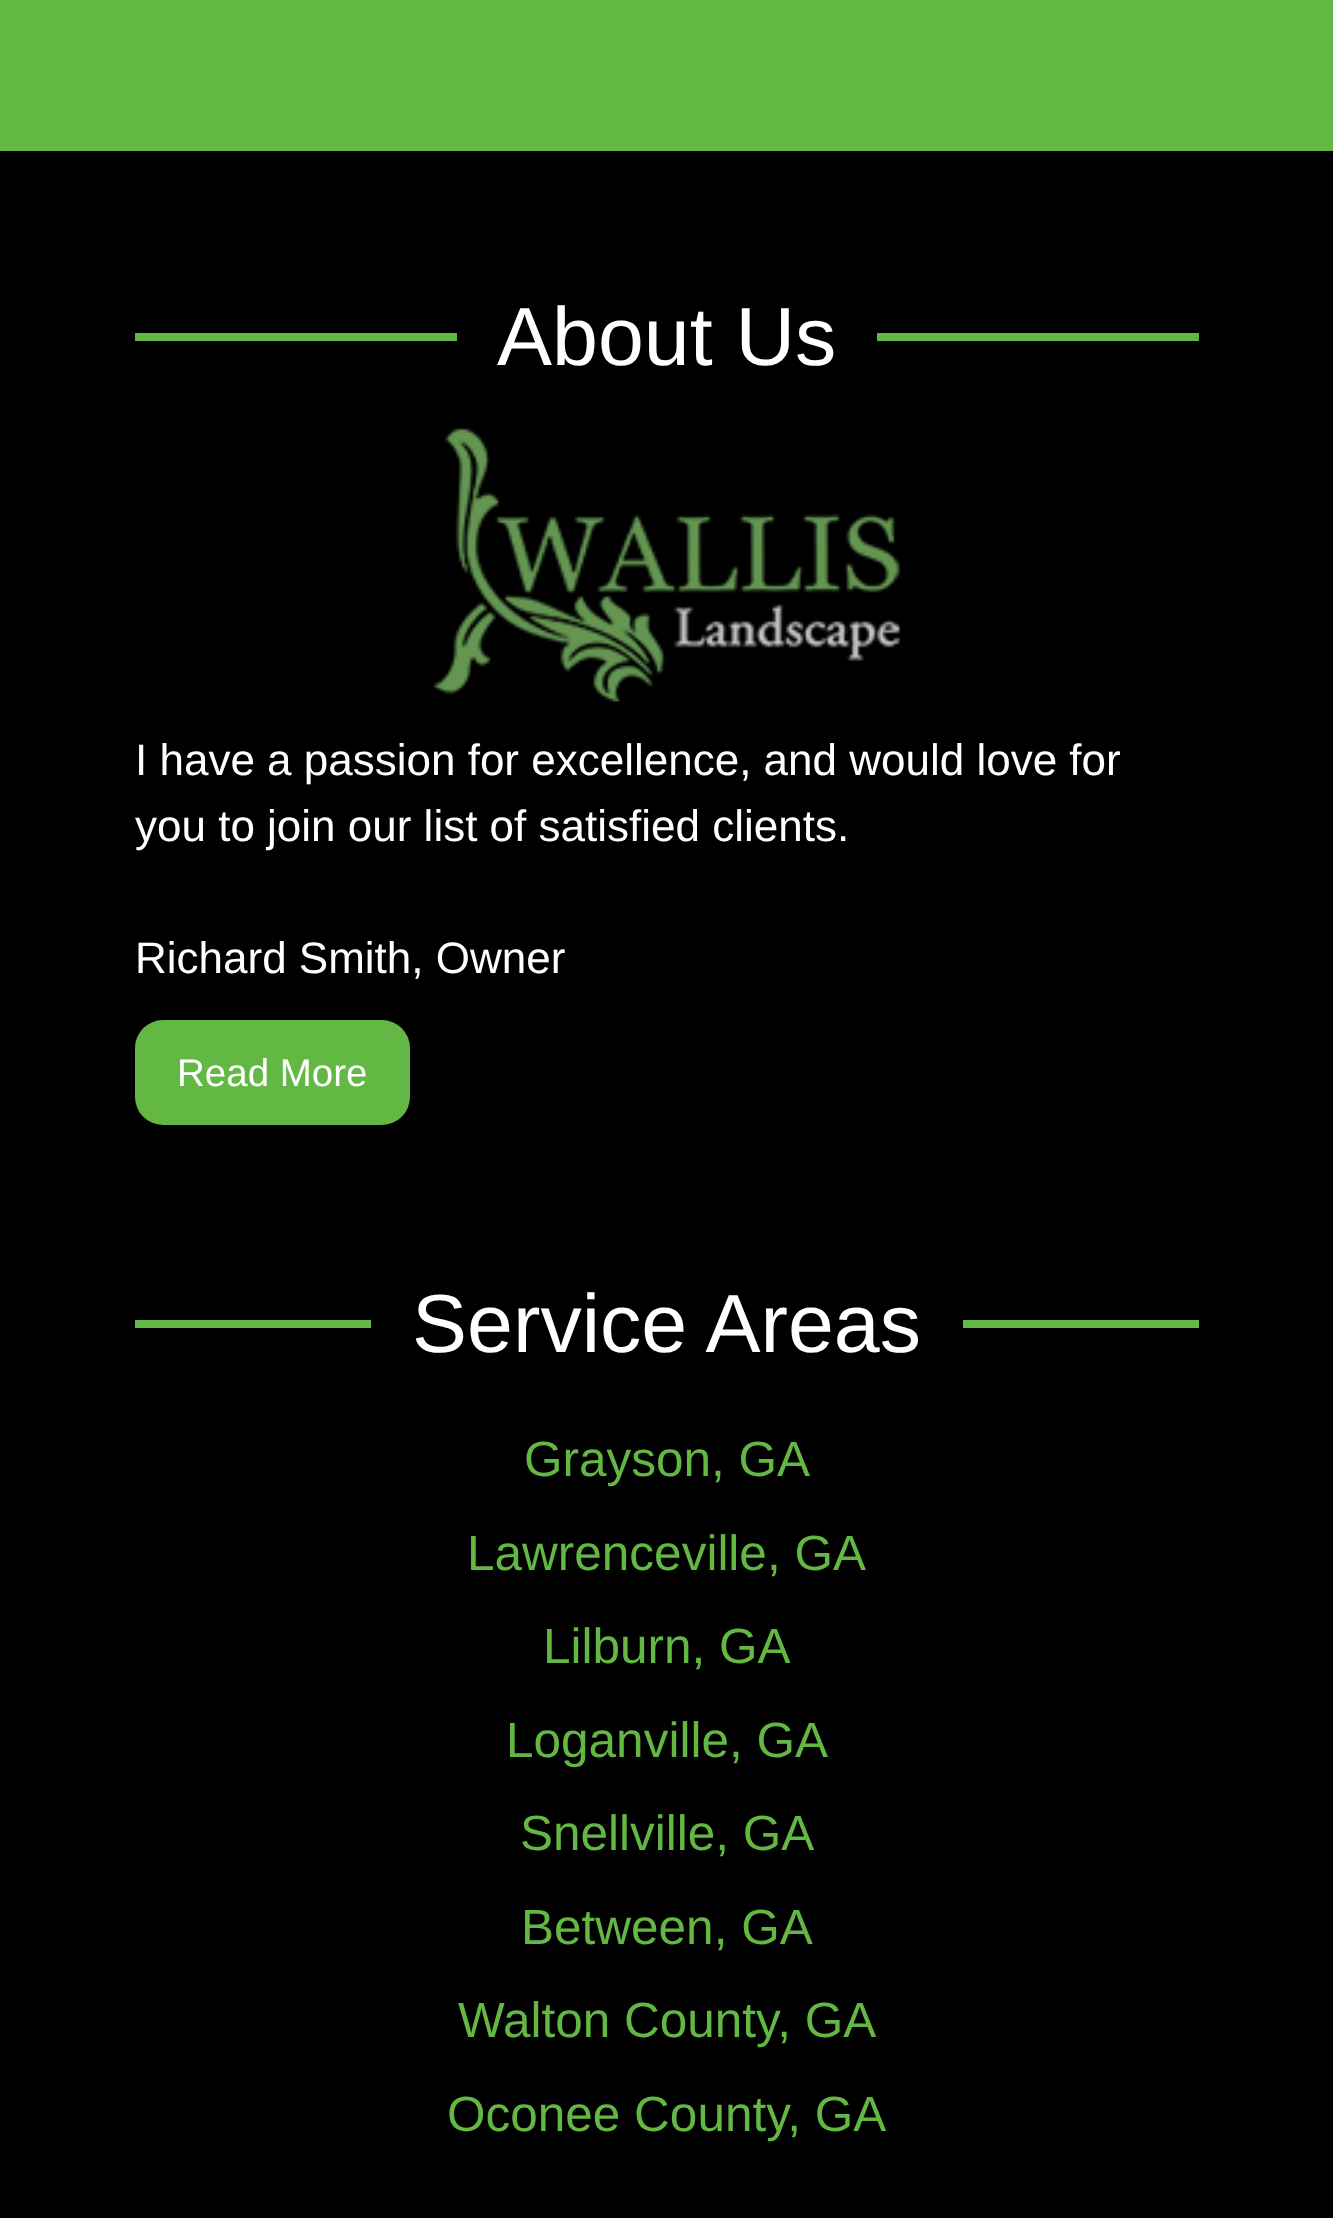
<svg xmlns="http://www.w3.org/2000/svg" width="1333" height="2218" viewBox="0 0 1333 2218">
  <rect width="100%" height="100%" fill="rgb(99,184,68)"/>
  <rect x="0" y="151" width="1333" height="2067" fill="rgb(0,0,0)"/>
  <rect x="135" y="333" width="322" height="8" fill="rgb(99,184,68)"/>
  <text x="497" y="365" font-family="Liberation Sans" font-size="82.5" fill="rgb(255,255,255)">About Us</text>
  <rect x="877" y="333" width="322" height="8" fill="rgb(99,184,68)"/>
  <image x="433" y="428" width="468" height="274" href="pic1.png"/>
  <g font-family="Liberation Sans" font-size="44" fill="rgb(255,255,255)">
    <text>
      <tspan x="135" y="775">I have a passion for excellence, and would love for</tspan>
      <tspan x="135" y="841">you to join our list of satisfied clients.</tspan>
    </text>
    <text x="135" y="973">Richard Smith, Owner</text>
  </g>
  <rect x="135" y="1020" width="275" height="105" rx="28" fill="rgb(99,184,68)"/>
  <text x="177" y="1086" font-family="Liberation Sans" font-size="38.5" fill="rgb(255,255,255)">Read More</text>
  <rect x="135" y="1320" width="236" height="8" fill="rgb(99,184,68)"/>
  <text x="412" y="1352" font-family="Liberation Sans" font-size="82.5" fill="rgb(255,255,255)">Service Areas</text>
  <rect x="963" y="1320" width="236" height="8" fill="rgb(99,184,68)"/>
  <g font-family="Liberation Sans" font-size="49.5" fill="rgb(99,184,68)">
    <text x="524" y="1476">Grayson, GA</text>
    <text x="467" y="1570">Lawrenceville, GA</text>
    <text x="543" y="1663">Lilburn, GA</text>
    <text x="506" y="1757">Loganville, GA</text>
    <text x="520" y="1850">Snellville, GA</text>
    <text x="521" y="1944">Between, GA</text>
    <text x="458" y="2037">Walton County, GA</text>
    <text x="447" y="2131">Oconee County, GA</text>
  </g>
</svg>
